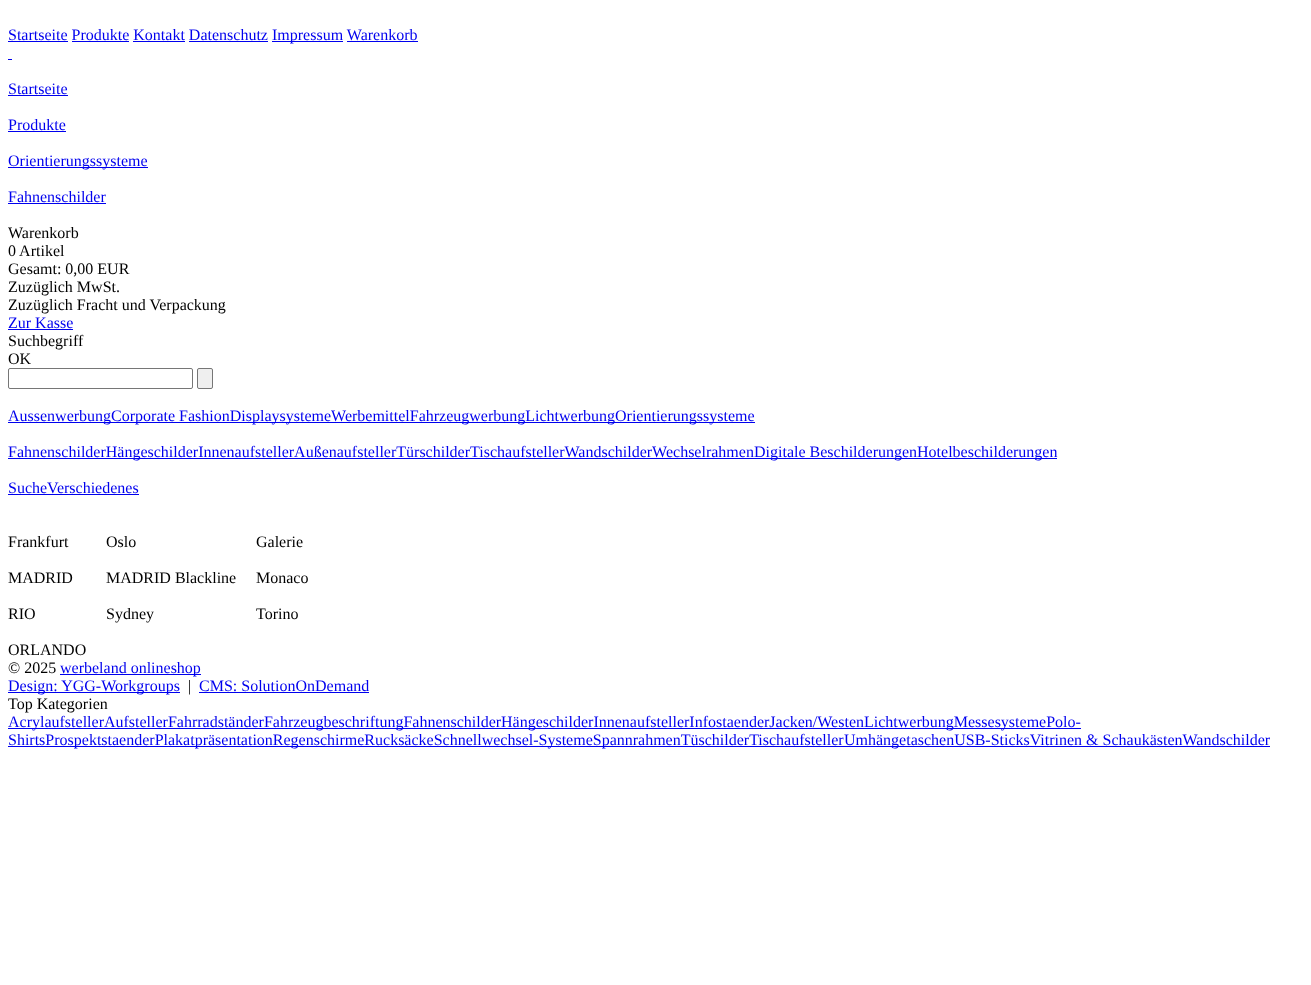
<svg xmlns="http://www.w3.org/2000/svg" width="1311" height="985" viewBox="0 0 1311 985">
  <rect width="100%" height="100%" fill="rgb(255,255,255)"/>
  <text x="8" y="40" font-family="Liberation Serif" font-size="16" fill="rgb(0,0,238)">Startseite Produkte Kontakt Datenschutz</text>
  <rect x="8" y="41" width="60" height="1" fill="rgb(0,0,238)"/>
  <rect x="272" y="41" width="71" height="1" fill="rgb(0,0,238)"/>
  <text x="272" y="40" font-family="Liberation Serif" font-size="16" fill="rgb(0,0,238)">Impressum Warenkorb</text>
  <rect x="72" y="41" width="57" height="1" fill="rgb(0,0,238)"/>
  <rect x="133" y="41" width="52" height="1" fill="rgb(0,0,238)"/>
  <rect x="189" y="41" width="79" height="1" fill="rgb(0,0,238)"/>
  <rect x="347" y="41" width="71" height="1" fill="rgb(0,0,238)"/>
  <rect x="8" y="59" width="4" height="1" fill="rgb(0,0,238)"/>
  <text x="8" y="94" font-family="Liberation Serif" font-size="16" fill="rgb(0,0,238)">Startseite</text>
  <rect x="8" y="95" width="60" height="1" fill="rgb(0,0,238)"/>
  <text x="8" y="130" font-family="Liberation Serif" font-size="16" fill="rgb(0,0,238)">Produkte</text>
  <rect x="8" y="131" width="58" height="1" fill="rgb(0,0,238)"/>
  <rect x="8" y="167" width="140" height="1" fill="rgb(0,0,238)"/>
  <g font-family="Liberation Serif" font-size="16" fill="rgb(0,0,238)">
    <text x="8" y="166">Orientierungssysteme</text>
    <text x="8" y="202">Fahnenschilder</text>
  </g>
  <rect x="8" y="203" width="98" height="1" fill="rgb(0,0,238)"/>
  <g font-family="Liberation Serif" font-size="16" fill="rgb(0,0,0)">
    <text>
      <tspan x="8" y="238">Warenkorb</tspan>
      <tspan x="8" y="256">0 Artikel</tspan>
      <tspan x="8" y="274">Gesamt: 0,00 EUR</tspan>
      <tspan x="8" y="292">Zuzüglich MwSt.</tspan>
      <tspan x="8" y="310">Zuzüglich Fracht und Verpackung</tspan>
    </text>
  </g>
  <text x="8" y="328" font-family="Liberation Serif" font-size="16" fill="rgb(0,0,238)">Zur Kasse</text>
  <rect x="8" y="329" width="65" height="1" fill="rgb(0,0,238)"/>
  <g font-family="Liberation Serif" font-size="16" fill="rgb(0,0,0)">
    <text>
      <tspan x="8" y="346">Suchbegriff</tspan>
      <tspan x="8" y="364">OK</tspan>
    </text>
  </g>
  <rect x="8.5" y="368.5" width="184" height="20" rx="1.5" fill="none" stroke="rgb(118,118,118)"/>
  <rect x="197.5" y="368.5" width="15" height="20" rx="1.5" fill="rgb(239,239,239)" stroke="rgb(118,118,118)"/>
  <rect x="8" y="422" width="747" height="1" fill="rgb(0,0,238)"/>
  <text x="8" y="421" font-family="Liberation Serif" font-size="16" fill="rgb(0,0,238)">AussenwerbungCorporate FashionDisplaysystemeWerbemittelFahrzeugwerbungLichtwerbungOrientierungssysteme</text>
  <rect x="8" y="458" width="190" height="1" fill="rgb(0,0,238)"/>
  <text x="8" y="457" font-family="Liberation Serif" font-size="16" fill="rgb(0,0,238)">FahnenschilderHängeschilderInnenaufstellerAußenaufstellerTürschilderTischaufstellerWandschilderWechselrahmen</text>
  <rect x="198" y="458" width="859" height="1" fill="rgb(0,0,238)"/>
  <g font-family="Liberation Serif" font-size="16" fill="rgb(0,0,238)">
    <text x="754" y="457">Digitale BeschilderungenHotelbeschilderungen</text>
    <text x="8" y="493">SucheVerschiedenes</text>
  </g>
  <rect x="8" y="494" width="131" height="1" fill="rgb(0,0,238)"/>
  <g font-family="Liberation Serif" font-size="16" fill="rgb(0,0,0)">
    <text x="8" y="547">Frankfurt</text>
    <text x="106" y="547">Oslo</text>
    <text x="256" y="547">Galerie</text>
    <text x="8" y="583">MADRID</text>
    <text x="106" y="583">MADRID Blackline</text>
    <text x="256" y="583">Monaco</text>
    <text x="8" y="619">RIO</text>
    <text x="106" y="619">Sydney</text>
    <text x="256" y="619">Torino</text>
    <text>
      <tspan x="8" y="655">ORLANDO</tspan>
      <tspan x="8" y="673">© 2025</tspan>
    </text>
  </g>
  <rect x="60" y="674" width="141" height="1" fill="rgb(0,0,238)"/>
  <text x="60" y="673" font-family="Liberation Serif" font-size="16" fill="rgb(0,0,238)">werbeland onlineshop</text>
  <rect x="8" y="692" width="172" height="1" fill="rgb(0,0,238)"/>
  <text x="8" y="691" font-family="Liberation Serif" font-size="16" fill="rgb(0,0,238)">Design: YGG-Workgroups</text>
  <text x="188" y="691" font-family="Liberation Serif" font-size="16" fill="rgb(0,0,0)">|</text>
  <text x="199" y="691" font-family="Liberation Serif" font-size="16" fill="rgb(0,0,238)">CMS: SolutionOnDemand</text>
  <rect x="199" y="692" width="170" height="1" fill="rgb(0,0,238)"/>
  <text x="8" y="709" font-family="Liberation Serif" font-size="16" fill="rgb(0,0,0)">Top Kategorien</text>
  <rect x="8" y="728" width="395" height="1" fill="rgb(0,0,238)"/>
  <text x="8" y="727" font-family="Liberation Serif" font-size="16" fill="rgb(0,0,238)">AcrylaufstellerAufstellerFahrradständerFahrzeugbeschriftungFahnenschilder</text>
  <rect x="403" y="728" width="678" height="1" fill="rgb(0,0,238)"/>
  <text x="501" y="727" font-family="Liberation Serif" font-size="16" fill="rgb(0,0,238)">HängeschilderInnenaufstellerInfostaenderJacken/WestenLichtwerbungMessesystemePolo-</text>
  <rect x="8" y="746" width="741" height="1" fill="rgb(0,0,238)"/>
  <text x="8" y="745" font-family="Liberation Serif" font-size="16" fill="rgb(0,0,238)">ShirtsProspektstaenderPlakatpräsentationRegenschirmeRucksäckeSchnellwechsel-SystemeSpannrahmenTüschilderTischaufsteller</text>
  <rect x="749" y="746" width="521" height="1" fill="rgb(0,0,238)"/>
  <text x="844" y="745" font-family="Liberation Serif" font-size="16" fill="rgb(0,0,238)">UmhängetaschenUSB-SticksVitrinen &amp; SchaukästenWandschilder</text>
</svg>
